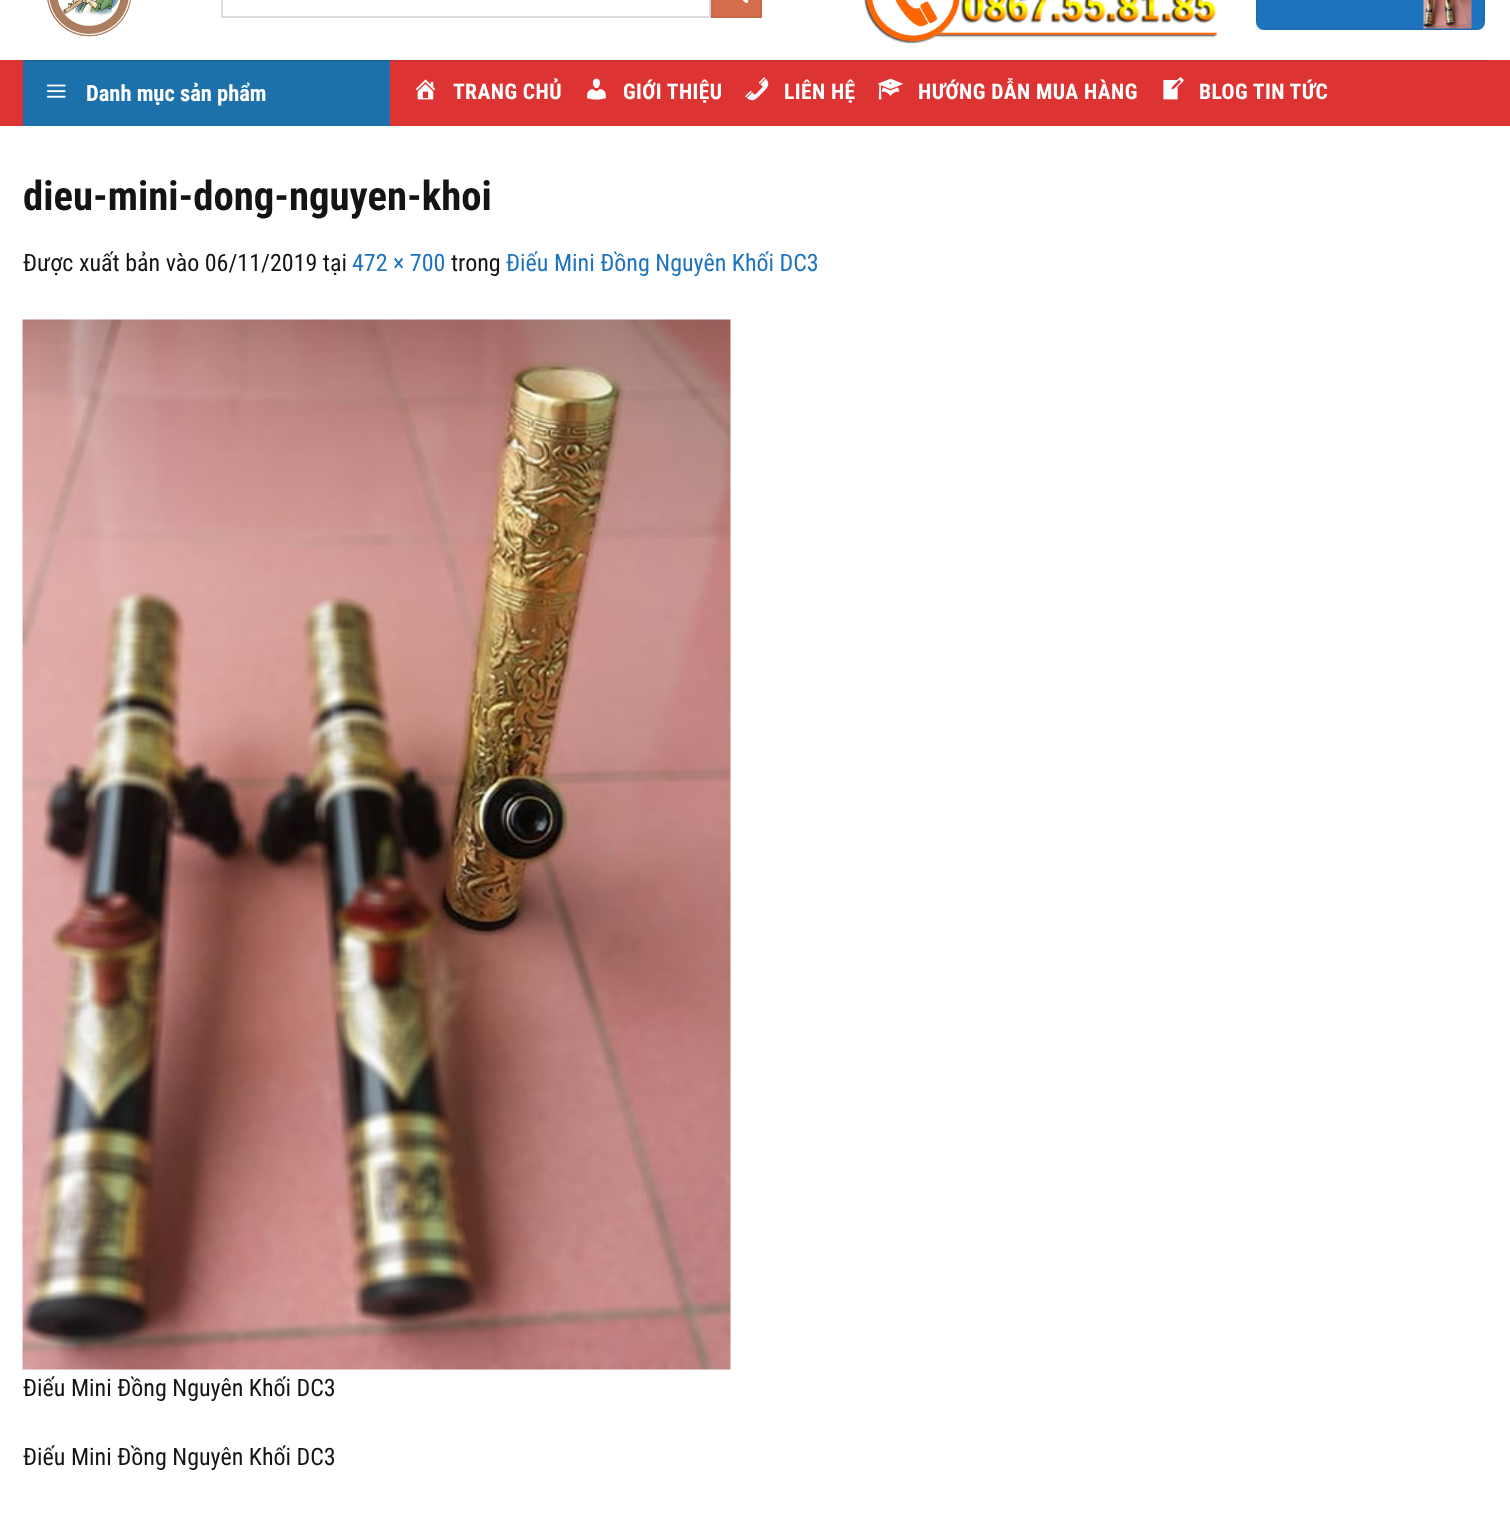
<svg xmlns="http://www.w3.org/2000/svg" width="1510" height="1527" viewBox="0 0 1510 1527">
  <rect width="100%" height="100%" fill="rgb(255,255,255)"/>
  <image x="47" y="0" width="84" height="37" href="pic1.png"/>
  <rect x="222" y="-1" width="488" height="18" fill="none" stroke="rgb(221,221,221)" stroke-width="2"/>
  <rect x="712" y="-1" width="49" height="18" fill="rgb(210,110,75)" stroke="rgb(200,105,71)" stroke-width="2"/>
  <image x="742" y="0" width="7" height="3" href="pic2.png"/>
  <image x="863" y="0" width="355" height="44" href="pic3.png"/>
  <rect x="1256" y="-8" width="229" height="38" rx="8" fill="rgb(30,115,190)"/>
  <rect x="1257" y="-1" width="227" height="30" fill="none" stroke="rgba(0,0,0,0.05)" stroke-width="2"/>
  <image x="1423" y="0" width="49" height="29" href="pic4.png"/>
  <rect x="0" y="60" width="1510" height="66" fill="rgb(221,51,51)"/>
  <rect x="390" y="60" width="1098" height="2" fill="rgb(201,48,48)"/>
  <rect x="23" y="62" width="367" height="64" fill="rgb(29,113,171)"/>
  <rect x="23" y="60" width="367" height="2" fill="rgb(28,104,156)"/>
  <image x="46" y="84" width="20" height="14" href="pic5.png"/>
  <text x="86" y="101" font-family="Roboto Condensed" font-size="22.5" font-weight="bold" fill="rgb(255,255,255)">Danh mục sản phẩm</text>
  <image x="415" y="79" width="21" height="21" href="pic6.png"/>
  <text x="453" y="99" font-family="Roboto Condensed" font-size="21.6" font-weight="bold" letter-spacing="0.4" fill="rgb(255,255,255)">TRANG CHỦ</text>
  <image x="587" y="78" width="19" height="22" href="pic7.png"/>
  <text x="623" y="99" font-family="Roboto Condensed" font-size="21.6" font-weight="bold" letter-spacing="0.4" fill="rgb(255,255,255)">GIỚI THIỆU</text>
  <image x="745" y="77" width="24" height="24" href="pic8.png"/>
  <text x="784" y="99" font-family="Roboto Condensed" font-size="21.6" font-weight="bold" letter-spacing="0.4" fill="rgb(255,255,255)">LIÊN HỆ</text>
  <image x="877" y="78" width="27" height="22" href="pic9.png"/>
  <text x="918" y="99" font-family="Roboto Condensed" font-size="21.6" font-weight="bold" letter-spacing="0.4" fill="rgb(255,255,255)">HƯỚNG DẪN MUA HÀNG</text>
  <image x="1163" y="77" width="21" height="23" href="pic10.png"/>
  <text x="1199" y="99" font-family="Roboto Condensed" font-size="21.6" font-weight="bold" letter-spacing="0.4" fill="rgb(255,255,255)">BLOG TIN TỨC</text>
  <text x="23" y="210" font-family="Roboto Condensed" font-size="40.75" font-weight="bold" fill="rgb(20,20,20)">dieu-mini-dong-nguyen-khoi</text>
  <text x="23" y="271" font-family="Roboto Condensed" font-size="24" fill="rgb(20,20,20)">Được xuất bản vào 06/11/2019 tại</text>
  <text x="352" y="271" font-family="Roboto Condensed" font-size="24" fill="rgb(30,115,190)">472 × 700</text>
  <text x="451" y="271" font-family="Roboto Condensed" font-size="24" fill="rgb(20,20,20)">trong</text>
  <text x="506" y="271" font-family="Roboto Condensed" font-size="24" fill="rgb(30,115,190)">Điếu Mini Đồng Nguyên Khối DC3</text>
  <image x="22" y="319" width="709" height="1051" href="pic11.png"/>
  <g font-family="Roboto Condensed" font-size="24" fill="rgb(20,20,20)">
    <text x="23" y="1396">Điếu Mini Đồng Nguyên Khối DC3</text>
    <text x="23" y="1465">Điếu Mini Đồng Nguyên Khối DC3</text>
  </g>
</svg>
